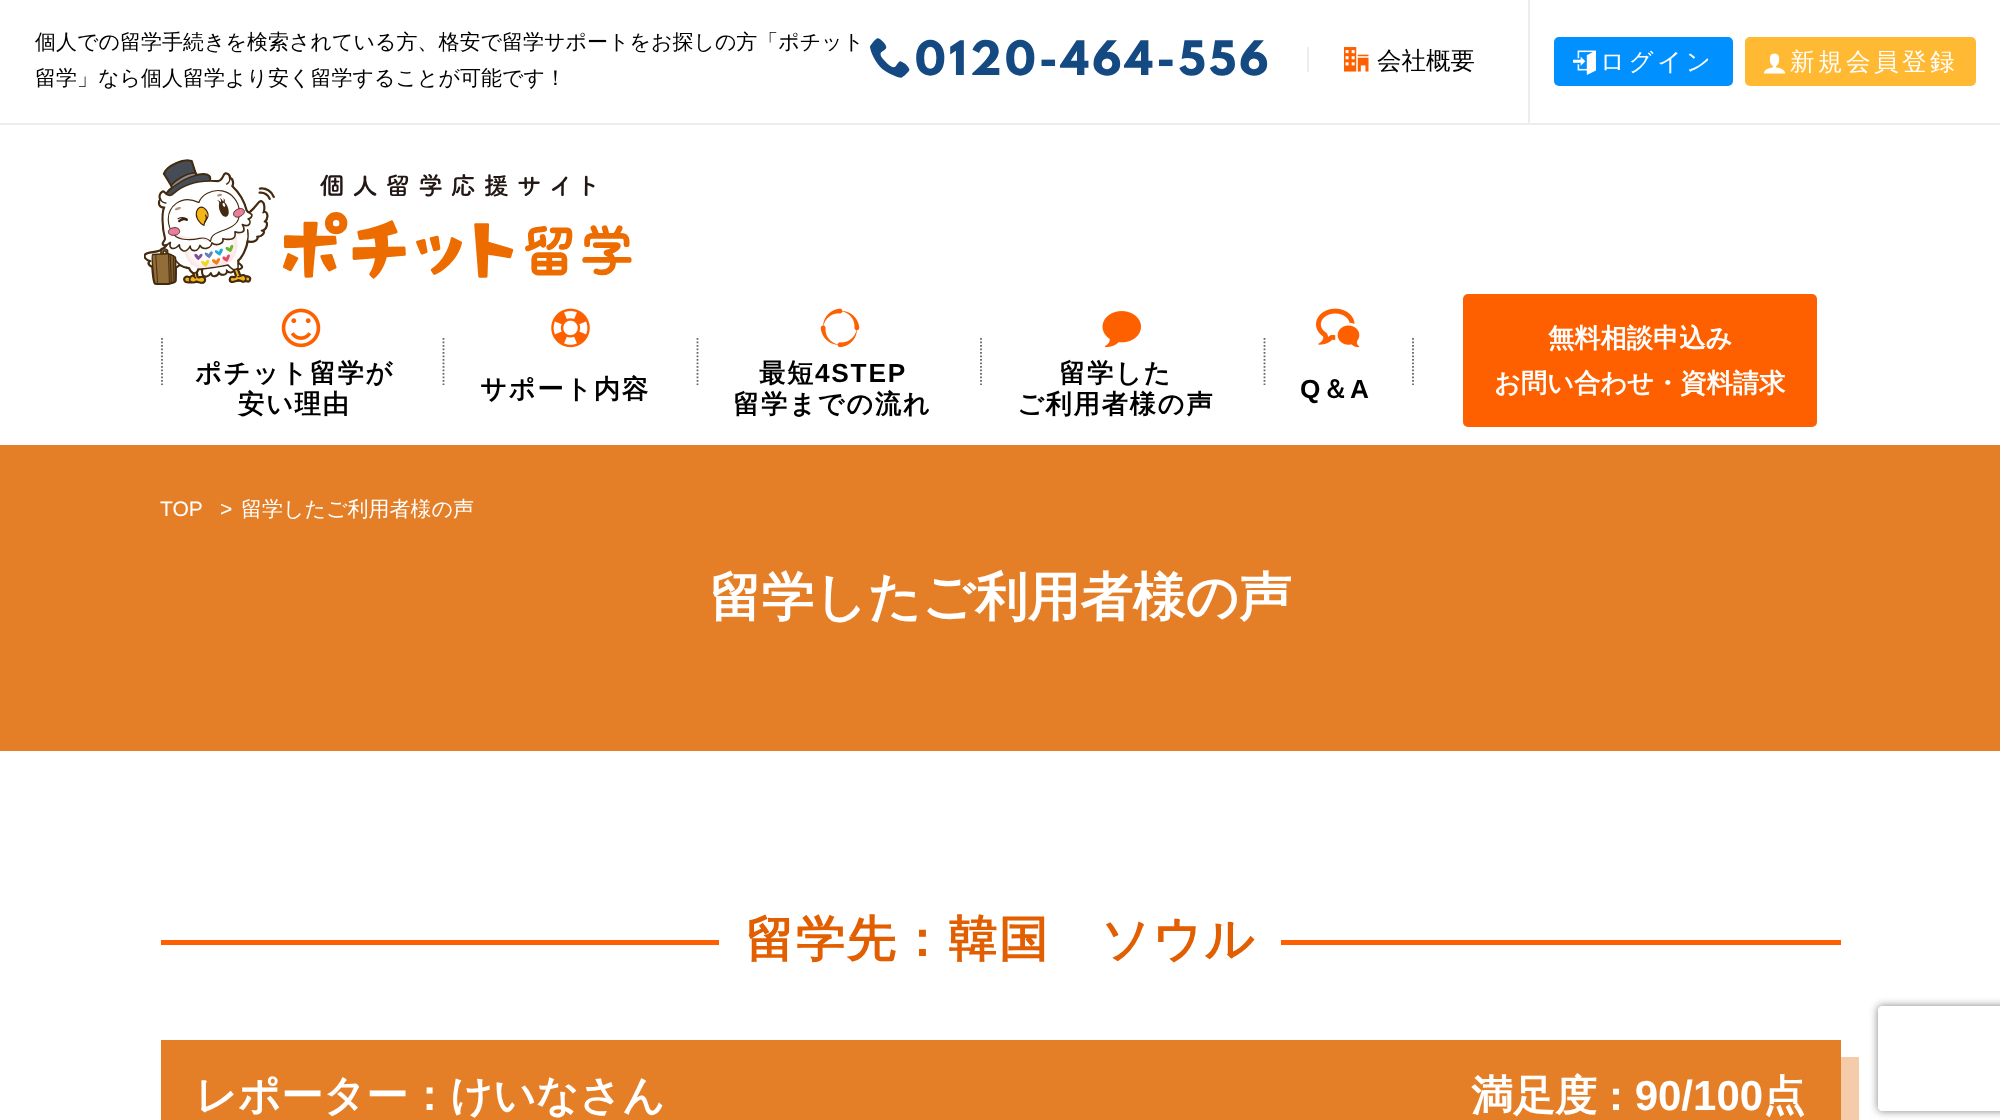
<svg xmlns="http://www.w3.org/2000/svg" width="2000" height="1120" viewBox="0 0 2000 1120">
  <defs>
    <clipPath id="clip1"><path d="M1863 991H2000V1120H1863ZM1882 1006H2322C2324 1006 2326 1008 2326 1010V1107C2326 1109 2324 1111 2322 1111H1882C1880 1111 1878 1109 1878 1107V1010C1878 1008 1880 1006 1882 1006Z" clip-rule="evenodd"/></clipPath>
  </defs>
  <rect width="100%" height="100%" fill="rgb(255,255,255)"/>
  <rect x="0" y="123" width="2000" height="2" fill="rgb(237,237,237)"/>
  <g font-family="WenQuanYi Zen Hei" font-size="21" font-weight="500" fill="rgb(0,0,0)">
    <text>
      <tspan x="35" y="49">個人での留学手続きを検索されている方、格安で留学サポートをお探しの方「ポチット</tspan>
      <tspan x="35" y="85">留学」なら個人留学より安く留学することが可能です！</tspan>
    </text>
  </g>
  <text x="870" y="75" font-family="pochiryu" font-size="42" letter-spacing="3.5" fill="rgb(21,73,129)">🌒</text>
  <text x="915" y="75" font-family="League Spartan" font-size="42" font-weight="bold" letter-spacing="3.5" fill="rgb(21,73,129)">0120-464-556</text>
  <image x="1344" y="47" width="25" height="25" href="pic1.png"/>
  <text x="1377" y="69" font-family="WenQuanYi Zen Hei" font-size="24.5" font-weight="500" fill="rgb(0,0,0)">会社概要</text>
  <rect x="1307" y="47" width="2" height="25" fill="rgb(237,237,237)"/>
  <rect x="1528" y="0" width="2" height="123" fill="rgb(237,237,237)"/>
  <rect x="1554" y="37" width="179" height="49" rx="5" fill="rgb(0,144,255)"/>
  <image x="1573" y="50" width="23" height="25" href="pic2.png"/>
  <text x="1600" y="70" font-family="WenQuanYi Zen Hei" font-size="24.5" font-weight="500" letter-spacing="3.5" fill="rgb(255,255,255)">ログイン</text>
  <rect x="1745" y="37" width="231" height="49" rx="5" fill="rgb(255,185,51)"/>
  <image x="1763" y="53" width="23" height="21" href="pic3.png"/>
  <text x="1790" y="70" font-family="WenQuanYi Zen Hei" font-size="24.5" font-weight="500" letter-spacing="3.5" fill="rgb(255,255,255)">新規会員登録</text>
  <image x="144" y="159" width="488" height="126" href="pic4.png"/>
  <path d="M162 338V385" fill="none" stroke="rgb(102,102,102)" stroke-width="1.8" stroke-dasharray="1.75 1.75"/>
  <image x="281" y="308" width="40" height="40" href="pic5.png"/>
  <g font-family="WenQuanYi Zen Hei" font-size="26.25" font-weight="bold" letter-spacing="1.75" fill="rgb(0,0,0)">
    <text x="195" y="382">ポチット留学が</text>
    <text x="238" y="413">安い理由</text>
  </g>
  <path d="M443.5 338V385" fill="none" stroke="rgb(102,102,102)" stroke-width="1.8" stroke-dasharray="1.75 1.75"/>
  <path d="M697.5 338V385" fill="none" stroke="rgb(102,102,102)" stroke-width="1.8" stroke-dasharray="1.75 1.75"/>
  <image x="551" y="308" width="39" height="40" href="pic6.png"/>
  <text x="480" y="398" font-family="WenQuanYi Zen Hei" font-size="26.25" font-weight="bold" letter-spacing="1.75" fill="rgb(0,0,0)">サポート内容</text>
  <image x="820" y="308" width="40" height="40" href="pic7.png"/>
  <text x="759" y="382" font-family="WenQuanYi Zen Hei" font-size="26.25" font-weight="bold" letter-spacing="1.75" fill="rgb(0,0,0)">最短</text>
  <text x="815" y="382" font-family="Liberation Sans" font-size="26.25" font-weight="bold" letter-spacing="1.75" fill="rgb(0,0,0)">4STEP</text>
  <text x="733" y="413" font-family="WenQuanYi Zen Hei" font-size="26.25" font-weight="bold" letter-spacing="1.75" fill="rgb(0,0,0)">留学までの流れ</text>
  <path d="M981 338V385" fill="none" stroke="rgb(102,102,102)" stroke-width="1.8" stroke-dasharray="1.75 1.75"/>
  <image x="1102" y="311" width="39" height="37" href="pic8.png"/>
  <g font-family="WenQuanYi Zen Hei" font-size="26.25" font-weight="bold" letter-spacing="1.75" fill="rgb(0,0,0)">
    <text x="1059" y="382">留学した</text>
    <text x="1017" y="413">ご利用者様の声</text>
  </g>
  <path d="M1264.5 338V385" fill="none" stroke="rgb(102,102,102)" stroke-width="1.8" stroke-dasharray="1.75 1.75"/>
  <path d="M1413 338V385" fill="none" stroke="rgb(102,102,102)" stroke-width="1.8" stroke-dasharray="1.75 1.75"/>
  <image x="1316" y="308" width="44" height="40" href="pic9.png"/>
  <text x="1300" y="398" font-family="Liberation Sans" font-size="26.25" font-weight="bold" letter-spacing="1.75" fill="rgb(0,0,0)">Q</text>
  <text x="1322" y="398" font-family="WenQuanYi Zen Hei" font-size="26.25" font-weight="bold" letter-spacing="1.75" fill="rgb(0,0,0)">＆</text>
  <text x="1350" y="398" font-family="Liberation Sans" font-size="26.25" font-weight="bold" letter-spacing="1.75" fill="rgb(0,0,0)">A</text>
  <rect x="1463" y="294" width="354" height="133" rx="5" fill="rgb(254,96,0)"/>
  <g font-family="WenQuanYi Zen Hei" font-size="26.25" font-weight="bold" fill="rgb(255,255,255)">
    <text x="1548" y="347">無料相談申込み</text>
    <text x="1494" y="392">お問い合わせ・資料請求</text>
  </g>
  <rect x="0" y="445" width="2000" height="306" fill="rgb(228,127,40)"/>
  <g font-family="Liberation Sans" font-size="21" fill="rgb(255,255,255)">
    <text x="160" y="516">TOP</text>
    <text x="220" y="516">&gt;</text>
  </g>
  <text x="241" y="516" font-family="WenQuanYi Zen Hei" font-size="21" font-weight="500" fill="rgb(255,255,255)">留学したご利用者様の声</text>
  <text x="709" y="615" font-family="WenQuanYi Zen Hei" font-size="52.5" font-weight="bold" fill="rgb(255,255,255)">留学したご利用者様の声</text>
  <rect x="161" y="940" width="1680" height="5" fill="rgb(254,96,0)"/>
  <rect x="719" y="940" width="562" height="5" fill="rgb(255,255,255)"/>
  <text x="745" y="956" font-family="WenQuanYi Zen Hei" font-size="49" font-weight="bold" letter-spacing="1.75" fill="rgb(225,95,0)">留学先：韓国　ソウル</text>
  <path d="M179 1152V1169H1859V1057H1841V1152Z" fill="rgb(244,204,169)"/>
  <rect x="161" y="1040" width="1680" height="80" fill="rgb(228,127,40)"/>
  <g font-family="WenQuanYi Zen Hei" font-size="42" font-weight="bold" fill="rgb(255,255,255)">
    <text x="195" y="1110">レポーター：けいなさん</text>
    <text x="1471" y="1110">満足度</text>
  </g>
  <text x="1609" y="1110" font-family="Liberation Sans" font-size="42" font-weight="bold" fill="rgb(255,255,255)">: 90/100</text>
  <text x="1763" y="1110" font-family="WenQuanYi Zen Hei" font-size="42" font-weight="bold" fill="rgb(255,255,255)">点</text>
  <g clip-path="url(#clip1)">
    <rect x="1878" y="1006" width="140" height="105" rx="4" fill="rgb(128,128,128)" filter="blur(4.5px)"/>
  </g>
</svg>
